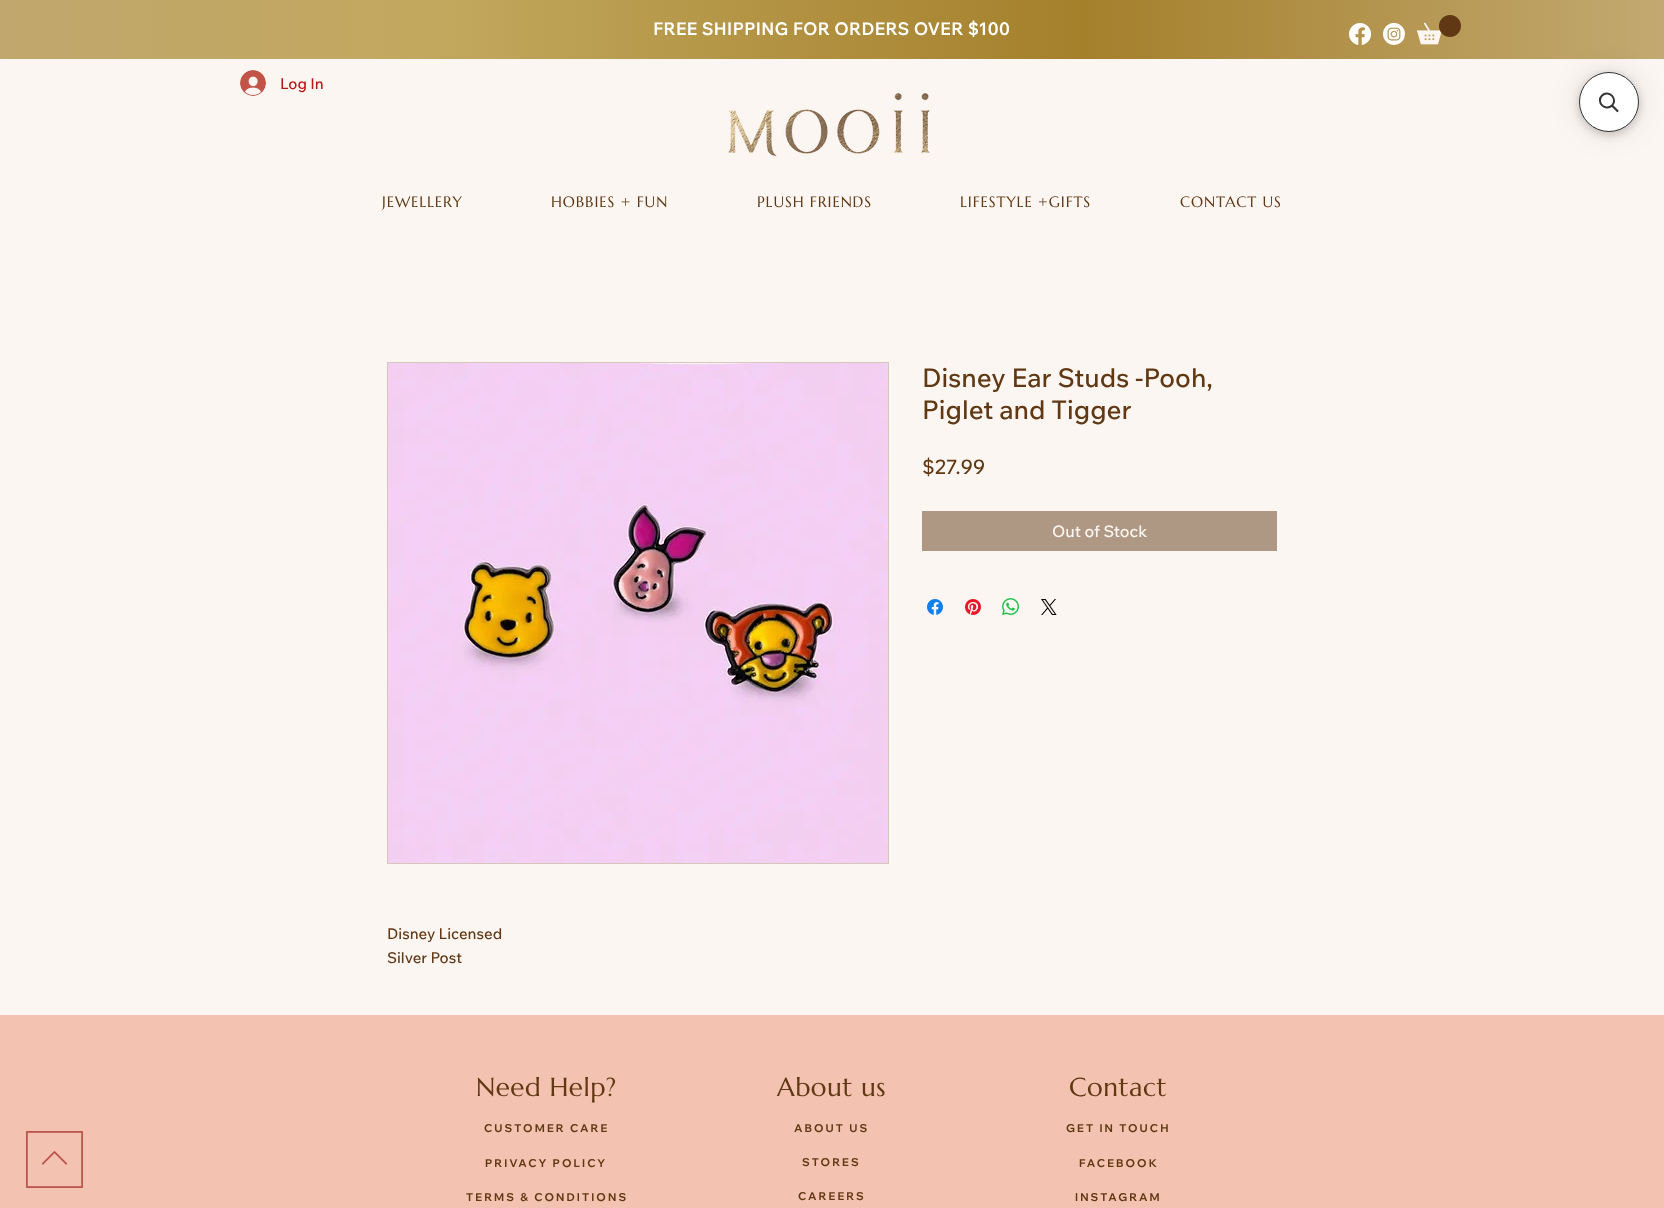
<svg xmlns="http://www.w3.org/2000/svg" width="1664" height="1208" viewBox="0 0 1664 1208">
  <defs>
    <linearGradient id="g1" gradientUnits="userSpaceOnUse" x1="0" y1="30" x2="1664" y2="29"><stop offset="0" stop-color="rgb(193,167,109)"/><stop offset="0.26" stop-color="rgb(194,168,94)"/><stop offset="0.65" stop-color="rgb(164,128,43)"/><stop offset="1" stop-color="rgb(195,169,113)"/></linearGradient>
  </defs>
  <rect width="100%" height="100%" fill="rgb(252,246,242)"/>
  <rect x="0" y="0" width="1664" height="59" fill="url(#g1)"/>
  <text x="653" y="35" font-family="Wix Madefor Text" font-size="17" font-weight="bold" letter-spacing="0.5" fill="rgb(255,255,254)">FREE SHIPPING FOR ORDERS OVER $100</text>
  <image x="1349" y="23" width="22" height="22" href="pic1.png"/>
  <image x="1383" y="23" width="22" height="22" href="pic2.png"/>
  <image x="1417" y="15" width="44" height="30" href="pic3.png"/>
  <image x="240" y="70" width="26" height="26" href="pic4.png"/>
  <text x="280" y="89" font-family="Wix Madefor Text" font-size="15" font-weight="500" fill="rgb(189,21,21)">Log In</text>
  <image x="728" y="93" width="202" height="64" href="pic5.png"/>
  <g font-family="Marcellus" font-size="15" letter-spacing="0.9" fill="rgb(96,56,19)">
    <text x="382" y="207">JEWELLERY</text>
    <text x="551" y="207">HOBBIES + FUN</text>
    <text x="757" y="207">PLUSH FRIENDS</text>
    <text x="960" y="207">LIFESTYLE +GIFTS</text>
    <text x="1180" y="207">CONTACT US</text>
  </g>
  <g font-family="Wix Madefor Text" font-size="26" font-weight="500" fill="rgb(96,56,19)">
    <text>
      <tspan x="922" y="387">Disney Ear Studs -Pooh,</tspan>
      <tspan x="922" y="419">Piglet and Tigger</tspan>
    </text>
  </g>
  <text x="922" y="474" font-family="Wix Madefor Text" font-size="20" font-weight="500" fill="rgb(96,56,19)">$27.99</text>
  <rect x="922" y="511" width="355" height="40" fill="rgb(174,151,131)"/>
  <text x="1052" y="537" font-family="Wix Madefor Text" font-size="16" font-weight="500" fill="rgb(252,246,242)">Out of Stock</text>
  <image x="927" y="599" width="16" height="16" href="pic6.png"/>
  <image x="965" y="599" width="16" height="16" href="pic7.png"/>
  <image x="1002" y="598" width="17" height="17" href="pic8.png"/>
  <image x="1041" y="599" width="16" height="16" href="pic9.png"/>
  <rect x="387.5" y="362.5" width="501" height="501" fill="none" stroke="rgb(213,199,186)"/>
  <image x="388" y="363" width="500" height="500" href="pic10.png"/>
  <g font-family="Wix Madefor Text" font-size="15" font-weight="500" fill="rgb(96,56,19)">
    <text>
      <tspan x="387" y="939">Disney Licensed</tspan>
      <tspan x="387" y="963">Silver Post</tspan>
    </text>
  </g>
  <rect x="0" y="1015" width="1664" height="193" fill="rgb(244,194,176)"/>
  <image x="26" y="1131" width="57" height="57" href="pic11.png"/>
  <text x="476" y="1096" font-family="Marcellus" font-size="26" letter-spacing="0.5" fill="rgb(96,56,19)">Need Help?</text>
  <g font-family="Wix Madefor Display" font-size="11" font-weight="bold" letter-spacing="2.1" fill="rgb(96,56,19)">
    <text x="484" y="1132">CUSTOMER CARE</text>
    <text x="485" y="1167">PRIVACY POLICY</text>
    <text x="466" y="1201">TERMS &amp; CONDITIONS</text>
  </g>
  <text x="777" y="1096" font-family="Marcellus" font-size="26" letter-spacing="0.5" fill="rgb(96,56,19)">About us</text>
  <g font-family="Wix Madefor Display" font-size="11" font-weight="bold" letter-spacing="2.1" fill="rgb(96,56,19)">
    <text x="794" y="1132">ABOUT US</text>
    <text x="802" y="1166">STORES</text>
    <text x="798" y="1200">CAREERS</text>
  </g>
  <text x="1069" y="1096" font-family="Marcellus" font-size="26" letter-spacing="0.5" fill="rgb(96,56,19)">Contact</text>
  <g font-family="Wix Madefor Display" font-size="11" font-weight="bold" letter-spacing="2.1" fill="rgb(96,56,19)">
    <text x="1066" y="1132">GET IN TOUCH</text>
    <text x="1079" y="1167">FACEBOOK</text>
    <text x="1075" y="1201">INSTAGRAM</text>
  </g>
  <rect x="1579" y="76" width="60" height="60" rx="30" fill="rgba(0,0,0,0.05)" filter="blur(4px)"/>
  <rect x="1579" y="74" width="60" height="60" rx="30" fill="rgba(0,0,0,0.15)" filter="blur(4px)"/>
  <rect x="1579" y="72" width="60" height="60" rx="30" fill="rgba(0,0,0,0.1)" filter="blur(15px)"/>
  <circle cx="1609" cy="102" r="29.5" fill="rgb(255,255,255)" stroke="rgb(51,51,51)"/>
  <path d="M1602 95.5C1608.5 89 1618.5 99 1612 105.5C1605.5 112 1595.5 102 1602 95.5Z" fill="none" stroke="rgb(51,51,51)" stroke-width="2"/>
  <path d="M1611 106L1612.5 104.5L1618.5 110.5C1619 111.5 1617.5 112.5 1617 112Z" fill="rgb(51,51,51)"/>
</svg>
